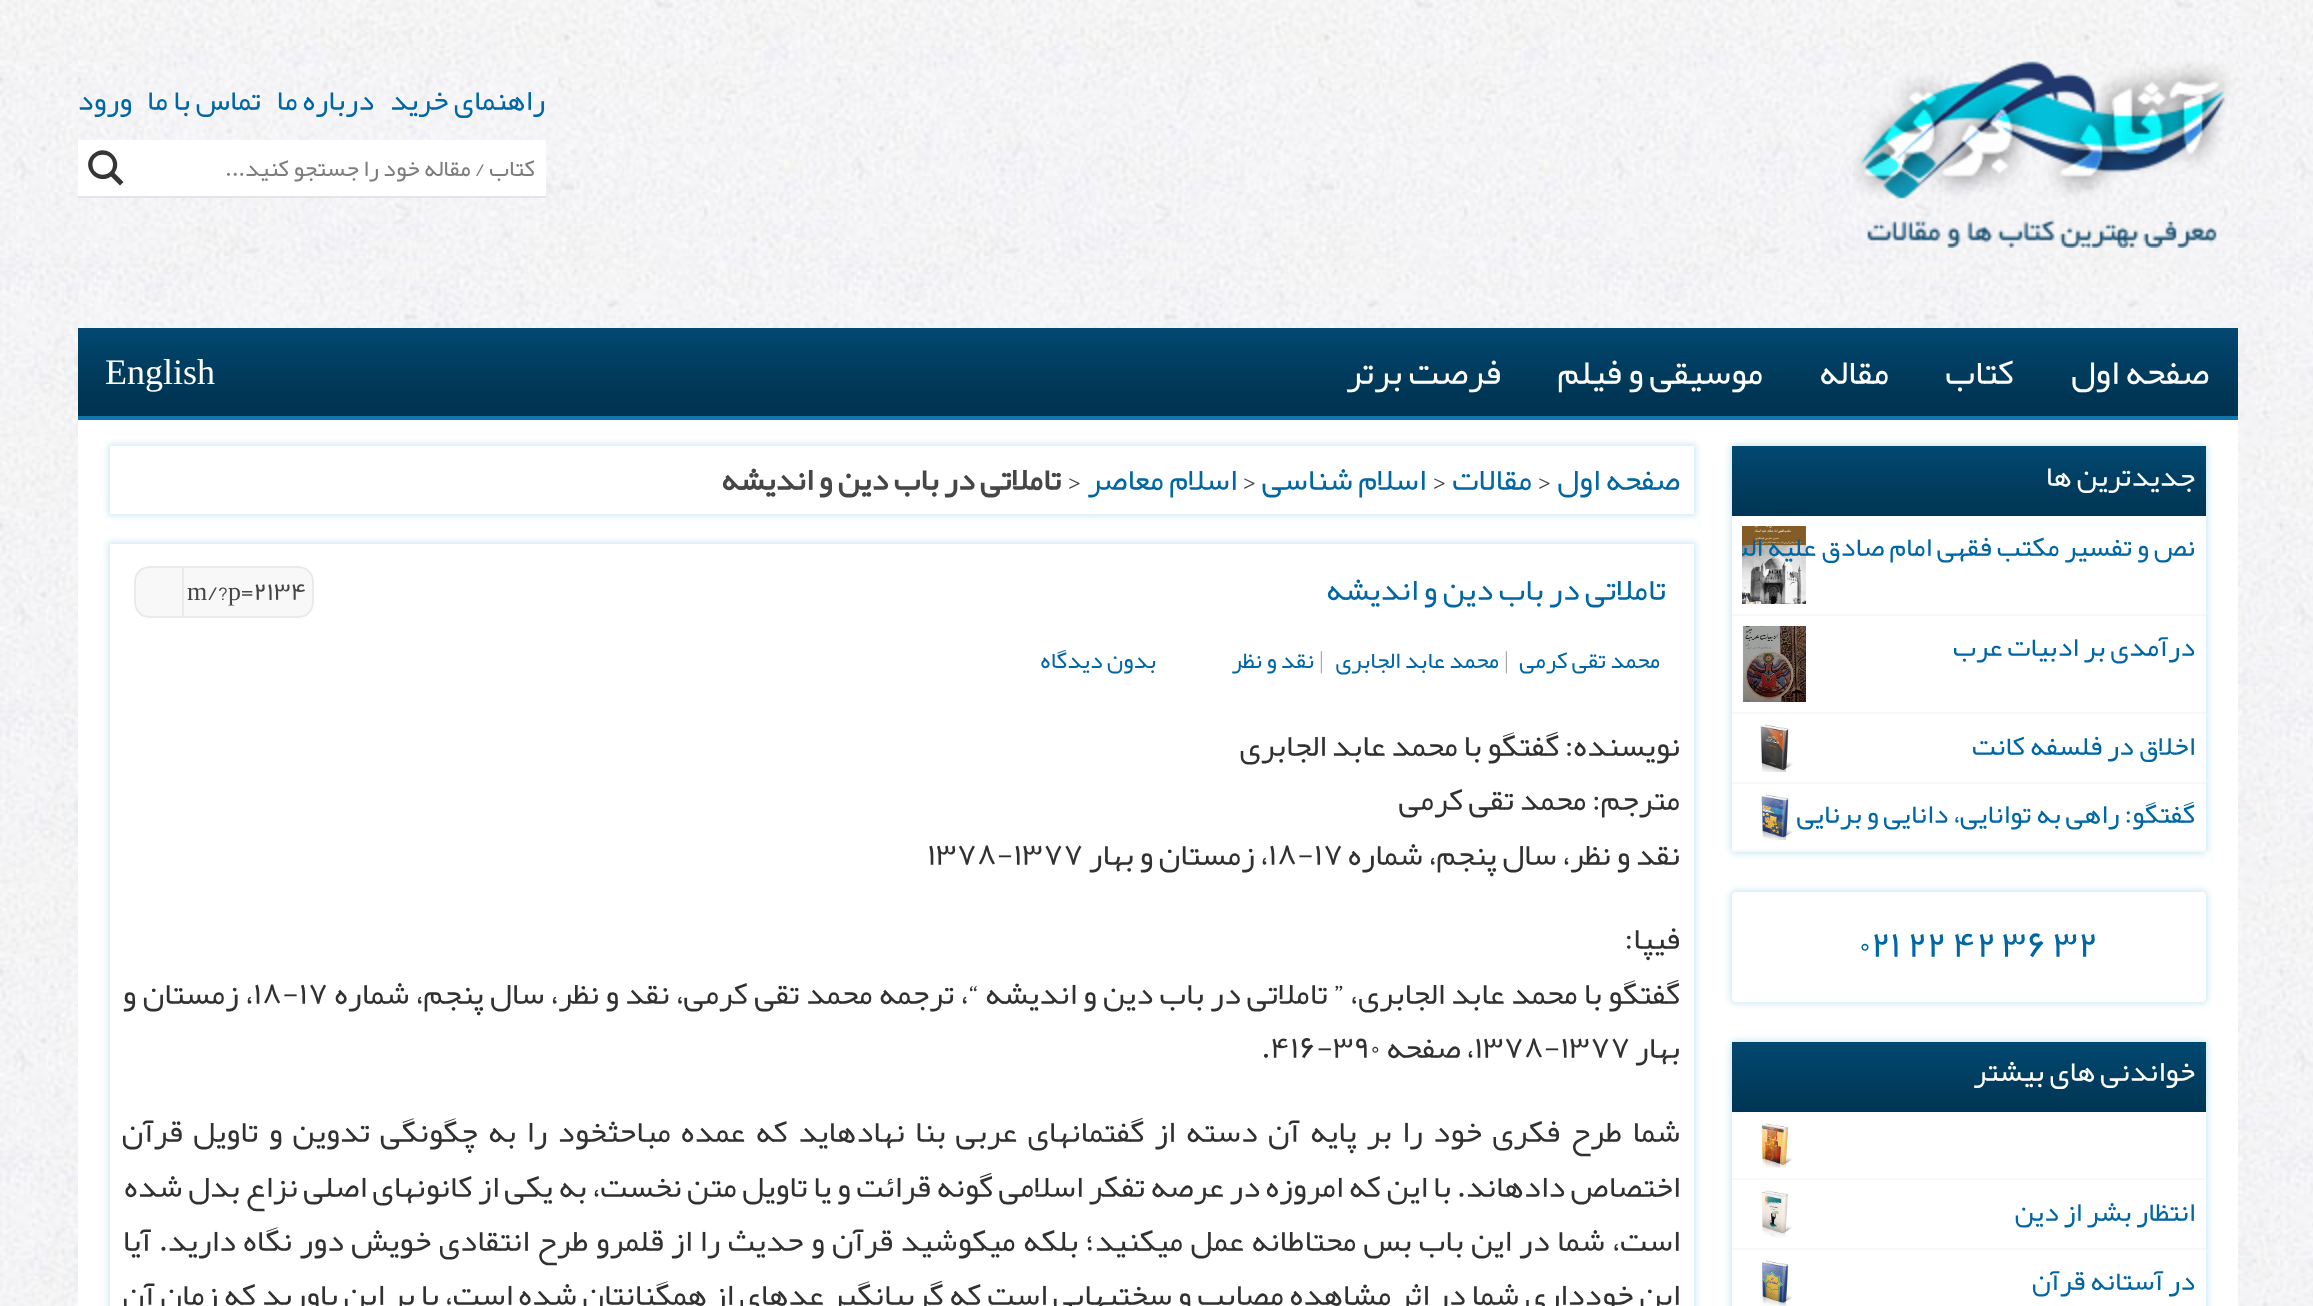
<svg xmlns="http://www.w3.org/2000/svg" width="2313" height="1306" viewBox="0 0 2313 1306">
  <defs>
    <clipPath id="clip1"><path d="M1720 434H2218V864H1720ZM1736 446H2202C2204 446 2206 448 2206 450V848C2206 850 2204 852 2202 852H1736C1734 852 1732 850 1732 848V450C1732 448 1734 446 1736 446Z" clip-rule="evenodd"/></clipPath>
    <clipPath id="clip2"><rect x="1742" y="526" width="454" height="78"/></clipPath>
    <clipPath id="clip3"><path d="M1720 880H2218V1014H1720ZM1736 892H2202C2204 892 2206 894 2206 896V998C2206 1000 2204 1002 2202 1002H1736C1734 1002 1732 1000 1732 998V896C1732 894 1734 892 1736 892Z" clip-rule="evenodd"/></clipPath>
    <clipPath id="clip4"><path d="M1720 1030H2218V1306H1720ZM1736 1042H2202C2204 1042 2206 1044 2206 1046V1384C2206 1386 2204 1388 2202 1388H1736C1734 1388 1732 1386 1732 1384V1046C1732 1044 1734 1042 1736 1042Z" clip-rule="evenodd"/></clipPath>
    <clipPath id="clip5"><path d="M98 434H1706V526H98ZM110 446H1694V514H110Z" clip-rule="evenodd"/></clipPath>
    <clipPath id="clip6"><path d="M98 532H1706V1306H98ZM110 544H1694V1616H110Z" clip-rule="evenodd"/></clipPath>
  </defs>
  <rect width="100%" height="100%" fill="rgb(255,255,255)"/>
  <image x="0" y="0" width="2313" height="1306" href="pic1.png"/>
  <rect x="78" y="420" width="2160" height="886" fill="rgb(255,255,255)"/>
  <image x="78" y="0" width="2160" height="328" href="pic2.png"/>
  <image x="1853" y="61" width="378" height="187" href="pic3.png"/>
  <g font-family="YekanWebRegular" font-size="30" direction="rtl" fill="rgb(0,102,164)">
    <text x="545" y="110">راهنمای خرید</text>
    <text x="374" y="110">درباره ما</text>
    <text x="261" y="110">تماس با ما</text>
    <text x="132" y="110">ورود</text>
  </g>
  <rect x="78" y="196" width="468" height="2" fill="rgb(228,228,228)"/>
  <rect x="78" y="140" width="468" height="56" fill="rgb(255,255,255)"/>
  <text x="535" y="176" font-family="YekanWebRegular" font-size="24" direction="rtl" fill="rgb(125,125,125)">کتاب / مقاله خود را جستجو کنید...</text>
  <path d="M123.5 182L114.5 173C124.5 159 105.5 142 92.5 154.5C80 167 97 186 111 176.5L120 185.5ZM92.5 164.5C92.5 151.5 113 151.5 113 164.5C113 178 92.5 178 92.5 164.5Z" fill="rgb(54,54,54)"/>
  <image x="78" y="328" width="2160" height="88" href="pic4.png"/>
  <rect x="78" y="416" width="2160" height="4" fill="rgb(16,118,174)"/>
  <g font-family="YekanWebRegular" font-size="36" direction="rtl" fill="rgb(255,255,255)">
    <text x="2209" y="384">صفحه اول</text>
    <text x="2014" y="384">کتاب</text>
    <text x="1889" y="384">مقاله</text>
    <text x="1763" y="384">موسیقی و فیلم</text>
    <text x="1501" y="384">فرصت برتر</text>
  </g>
  <text x="105" y="384" font-family="Liberation Serif" font-size="36" fill="rgb(255,255,255)">English</text>
  <g clip-path="url(#clip1)">
    <rect x="1730" y="444" width="478" height="410" rx="6" fill="rgba(96,184,219,0.3)" filter="blur(3px)"/>
  </g>
  <image x="1732" y="446" width="474" height="70" href="pic5.png"/>
  <text x="2195" y="486" font-family="YekanWebRegular" font-size="30" direction="rtl" fill="rgb(255,255,255)">جدیدترین ها</text>
  <rect x="1732" y="614" width="474" height="2" fill="rgb(248,248,248)"/>
  <image x="1742" y="526" width="64" height="78" href="pic6.png"/>
  <g clip-path="url(#clip2)">
    <text x="2195" y="556" font-family="YekanWebRegular" font-size="28" direction="rtl" fill="rgb(0,102,164)">نص و تفسیر مکتب فقهی امام صادق علیه السلام</text>
  </g>
  <rect x="1732" y="712" width="474" height="2" fill="rgb(248,248,248)"/>
  <text x="2195" y="656" font-family="YekanWebRegular" font-size="28" direction="rtl" fill="rgb(0,102,164)">درآمدی بر ادبیات عرب</text>
  <image x="1742" y="626" width="64" height="76" href="pic7.png"/>
  <rect x="1732" y="782" width="474" height="2" fill="rgb(248,248,248)"/>
  <text x="2195" y="755" font-family="YekanWebRegular" font-size="28" direction="rtl" fill="rgb(0,102,164)">اخلاق در فلسفه کانت</text>
  <image x="1759" y="724" width="34" height="48" href="pic8.png"/>
  <rect x="1732" y="850" width="474" height="2" fill="rgb(248,248,248)"/>
  <text x="2195" y="823" font-family="YekanWebRegular" font-size="28" direction="rtl" fill="rgb(0,102,164)">گفتگو: راهی به توانایی، دانایی و برنایی</text>
  <image x="1761" y="794" width="32" height="46" href="pic9.png"/>
  <g clip-path="url(#clip3)">
    <rect x="1730" y="890" width="478" height="114" rx="6" fill="rgba(96,184,219,0.3)" filter="blur(3px)"/>
  </g>
  <text x="1859" y="957" font-family="YekanWebRegular" font-size="38" fill="rgb(0,102,164)">021 22 42 36 32</text>
  <g clip-path="url(#clip4)">
    <rect x="1730" y="1040" width="478" height="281" rx="6" fill="rgba(96,184,219,0.3)" filter="blur(3px)"/>
  </g>
  <image x="1732" y="1042" width="474" height="70" href="pic5.png"/>
  <text x="2195" y="1081" font-family="YekanWebRegular" font-size="30" direction="rtl" fill="rgb(255,255,255)">خواندنی های بیشتر</text>
  <rect x="1732" y="1178" width="474" height="2" fill="rgb(248,248,248)"/>
  <image x="1761" y="1123" width="32" height="45" href="pic10.png"/>
  <rect x="1732" y="1248" width="474" height="2" fill="rgb(248,248,248)"/>
  <text x="2195" y="1221" font-family="YekanWebRegular" font-size="28" direction="rtl" fill="rgb(0,102,164)">انتظار بشر از دین</text>
  <image x="1761" y="1190" width="31" height="48" href="pic11.png"/>
  <text x="2195" y="1290" font-family="YekanWebRegular" font-size="28" direction="rtl" fill="rgb(0,102,164)">در آستانه قرآن</text>
  <image x="1762" y="1260" width="31" height="46" href="pic12.png"/>
  <g clip-path="url(#clip5)">
    <rect x="108" y="444" width="1588" height="72" fill="rgba(96,184,219,0.3)" filter="blur(3px)"/>
  </g>
  <text x="1680" y="490" font-family="YekanWebRegular" font-size="32" direction="rtl" fill="rgb(0,102,164)">صفحه اول</text>
  <text x="1537" y="490" font-family="YekanWebRegular" font-size="32" fill="rgb(70,70,70)">&gt;</text>
  <text x="1532" y="490" font-family="YekanWebRegular" font-size="32" direction="rtl" fill="rgb(0,102,164)">مقالات</text>
  <text x="1432" y="490" font-family="YekanWebRegular" font-size="32" fill="rgb(70,70,70)">&gt;</text>
  <text x="1426" y="490" font-family="YekanWebRegular" font-size="32" direction="rtl" fill="rgb(0,102,164)">اسلام شناسی</text>
  <text x="1242" y="490" font-family="YekanWebRegular" font-size="32" fill="rgb(70,70,70)">&gt;</text>
  <text x="1237" y="490" font-family="YekanWebRegular" font-size="32" direction="rtl" fill="rgb(0,102,164)">اسلام معاصر</text>
  <text x="1067" y="490" font-family="YekanWebRegular" font-size="32" fill="rgb(70,70,70)">&gt;</text>
  <text x="1061" y="490" font-family="YekanWebRegular" font-size="32" font-weight="bold" direction="rtl" fill="rgb(70,70,70)">تاملاتی در باب دین و اندیشه</text>
  <g clip-path="url(#clip6)">
    <rect x="108" y="542" width="1588" height="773" fill="rgba(96,184,219,0.3)" filter="blur(3px)"/>
  </g>
  <text x="1666" y="600" font-family="YekanWebRegular" font-size="32" direction="rtl" fill="rgb(0,102,164)">تاملاتی در باب دین و اندیشه</text>
  <path d="M150 567H183V617H150C141.5 617 135 610.5 135 602V582C135 573.5 141.5 567 150 567Z" fill="rgb(248,248,248)" stroke="rgb(234,234,234)" stroke-width="2"/>
  <path d="M183 567H298C306.5 567 313 573.5 313 582V602C313 610.5 306.5 617 298 617H183Z" fill="rgb(248,248,248)" stroke="rgb(234,234,234)" stroke-width="2"/>
  <text x="241" y="600" font-family="YekanWebRegular" font-size="26" fill="rgb(70,70,70)">=2134</text>
  <text x="228" y="600" font-family="Liberation Serif" font-size="26" fill="rgb(70,70,70)">p</text>
  <text x="207" y="600" font-family="YekanWebRegular" font-size="26" fill="rgb(70,70,70)">/?</text>
  <text x="187" y="600" font-family="Liberation Serif" font-size="26" fill="rgb(70,70,70)">m</text>
  <text x="1660" y="668" font-family="YekanWebRegular" font-size="24" direction="rtl" fill="rgb(0,102,164)">محمد تقی کرمی</text>
  <text x="1504" y="668" font-family="Liberation Serif" font-size="24" fill="rgb(170,170,170)">|</text>
  <text x="1499" y="668" font-family="YekanWebRegular" font-size="24" direction="rtl" fill="rgb(0,102,164)">محمد عابد الجابری</text>
  <text x="1319" y="668" font-family="Liberation Serif" font-size="24" fill="rgb(170,170,170)">|</text>
  <g font-family="YekanWebRegular" font-size="24" direction="rtl" fill="rgb(0,102,164)">
    <text x="1314" y="668">نقد و نظر</text>
    <text x="1156" y="668">بدون دیدگاه</text>
  </g>
  <g font-family="YekanWebRegular" font-size="32" direction="rtl" fill="rgb(50,49,49)">
    <text>
      <tspan x="1680" y="756">نویسنده: گفتگو با محمد عابد الجابری</tspan>
      <tspan x="1680" y="810">مترجم: محمد تقی کرمی</tspan>
      <tspan x="1680" y="865">نقد و نظر، سال پنجم، شماره</tspan>
    </text>
  </g>
  <text x="1268" y="865" font-family="YekanWebRegular" font-size="32" fill="rgb(50,49,49)">۱۸-۱۷</text>
  <text x="1268" y="865" font-family="YekanWebRegular" font-size="32" direction="rtl" fill="rgb(50,49,49)">، زمستان و بهار</text>
  <text x="927" y="865" font-family="YekanWebRegular" font-size="32" fill="rgb(50,49,49)">۱۳۷۸-۱۳۷۷</text>
  <g font-family="YekanWebRegular" font-size="32" direction="rtl" fill="rgb(50,49,49)">
    <text>
      <tspan x="1680" y="949">فیپا:</tspan>
      <tspan x="1680" y="1004" word-spacing="0.6">گفتگو با محمد عابد الجابری، ” تاملاتی در باب دین و اندیشه “، ترجمه محمد تقی کرمی، نقد و نظر، سال پنجم، شماره</tspan>
    </text>
  </g>
  <text x="253" y="1004" font-family="YekanWebRegular" font-size="32" fill="rgb(50,49,49)">۱۸-۱۷</text>
  <g font-family="YekanWebRegular" font-size="32" direction="rtl" fill="rgb(50,49,49)">
    <text x="253" y="1004" word-spacing="1">، زمستان و</text>
    <text x="1680" y="1058">بهار</text>
  </g>
  <text x="1474" y="1058" font-family="YekanWebRegular" font-size="32" fill="rgb(50,49,49)">۱۳۷۸-۱۳۷۷</text>
  <text x="1474" y="1058" font-family="YekanWebRegular" font-size="32" direction="rtl" fill="rgb(50,49,49)">، صفحه</text>
  <text x="1261" y="1058" font-family="YekanWebRegular" font-size="32" fill="rgb(50,49,49)">.۴۱۶-۳۹۰</text>
  <g font-family="YekanWebRegular" font-size="32" direction="rtl" fill="rgb(50,49,49)">
    <text>
      <tspan x="1680" y="1142" word-spacing="4.7">شما طرح فكرى خود را بر پايه آن دسته از گفتمانهاى عربى بنا نهادهايد كه عمده مباحثخود را به چگونگى تدوين و تاويل قرآن</tspan>
      <tspan x="1680" y="1197">اختصاص دادهاند. با اين كه امروزه در عرصه تفكر اسلامى گونه قرائت و يا تاويل متن نخست، به يكى از كانونهاى اصلى نزاع بدل شده</tspan>
      <tspan x="1680" y="1251" word-spacing="1.8">است، شما در اين باب بس محتاطانه عمل مىكنيد؛ بلكه مىكوشيد قرآن و حديث را از قلمرو طرح انتقادى خويش دور نگاه داريد. آيا</tspan>
      <tspan x="1680" y="1305" word-spacing="0.2">اين خوددارى شما در اثر مشاهده مصايب و سختيهايى است كه گريبانگير عدهاى از همگنانتان شده است، يا بر اين باوريد كه زمان آن</tspan>
    </text>
  </g>
</svg>
